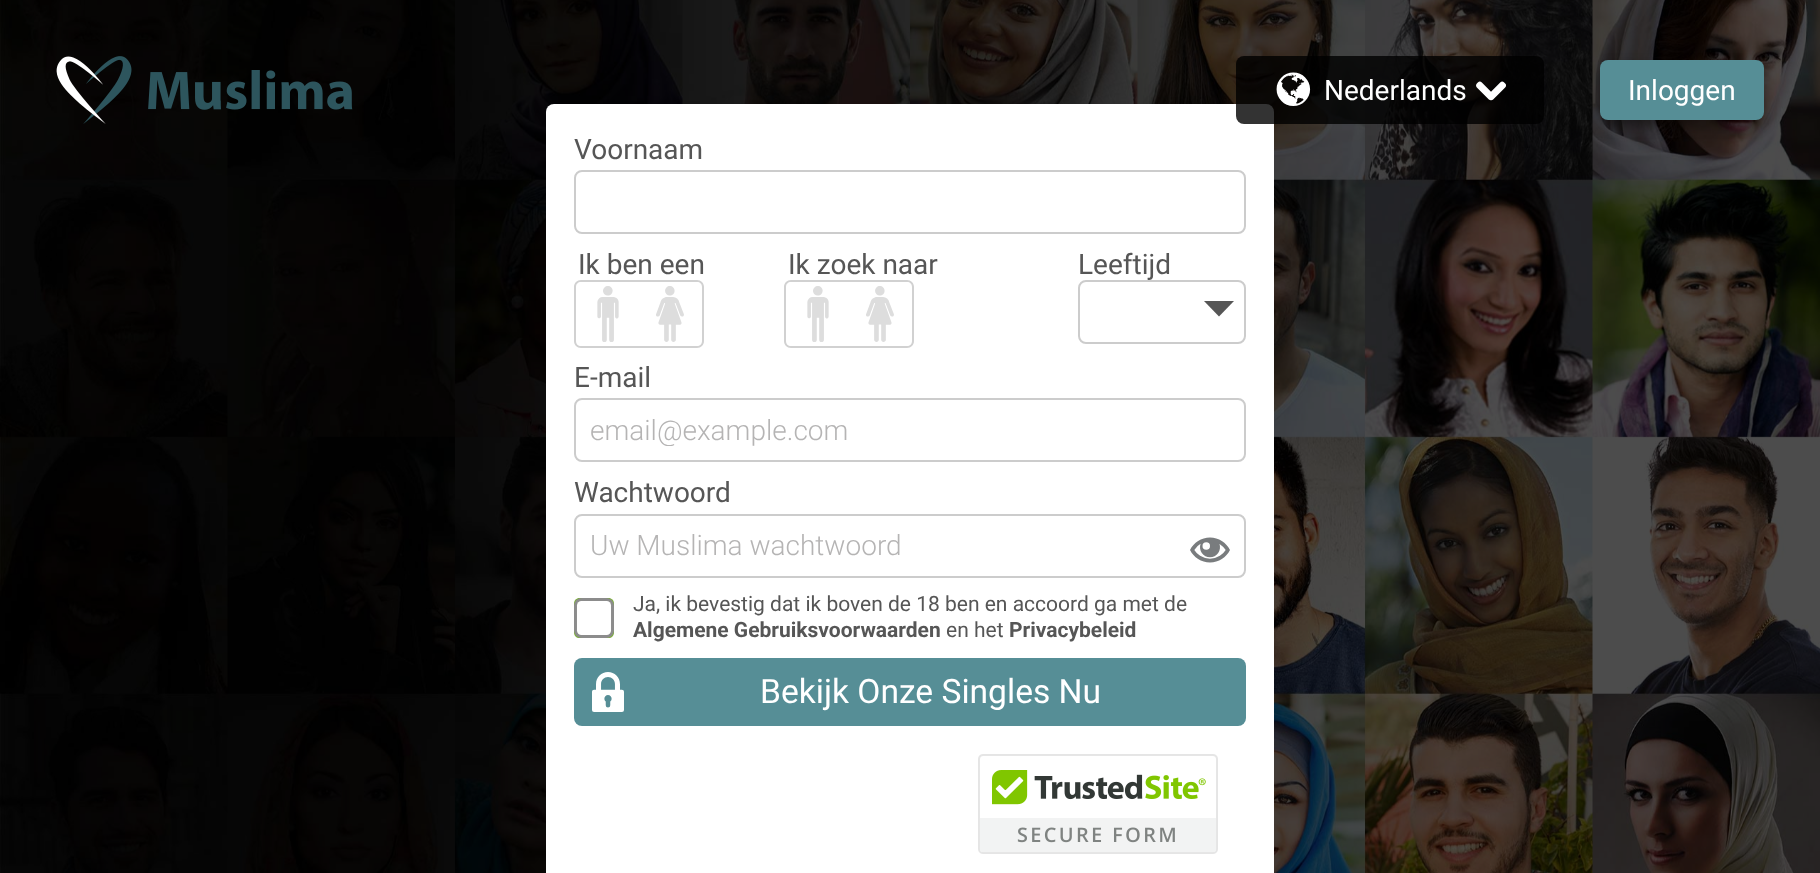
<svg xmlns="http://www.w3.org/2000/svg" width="1820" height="873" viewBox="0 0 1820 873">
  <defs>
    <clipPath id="clip1"><rect x="590" y="414" width="640" height="32"/></clipPath>
  </defs>
  <rect width="100%" height="100%" fill="rgb(255,255,255)"/>
  <image x="0" y="0" width="1820" height="873" href="pic1.png"/>
  <image x="56" y="56" width="76" height="68" href="pic2.png"/>
  <image x="148" y="70" width="205" height="40" href="pic3.png"/>
  <rect x="546" y="104" width="728" height="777" rx="8" fill="rgb(255,255,255)"/>
  <rect x="1236" y="56" width="308" height="68" rx="8" fill="rgba(0,0,0,0.8)"/>
  <image x="1276" y="72" width="35" height="34" href="pic4.png"/>
  <text x="1324" y="100" font-family="Roboto" font-size="28" fill="rgb(255,255,255)">Nederlands</text>
  <image x="1476" y="81" width="30" height="20" href="pic5.png"/>
  <rect x="1600" y="66" width="164" height="60" rx="8" fill="rgba(0,0,0,0.4)" filter="blur(6px)"/>
  <rect x="1600" y="60" width="164" height="60" rx="8" fill="rgb(86,142,150)"/>
  <text x="1628" y="100" font-family="Roboto" font-size="28" fill="rgb(255,255,255)">Inloggen</text>
  <text x="574" y="159" font-family="Roboto" font-size="28" fill="rgb(86,86,86)">Voornaam</text>
  <rect x="575" y="171" width="670" height="62" rx="7" fill="none" stroke="rgb(204,204,204)" stroke-width="2"/>
  <text x="578" y="274" font-family="Roboto" font-size="28" fill="rgb(86,86,86)">Ik ben een</text>
  <path d="M581 280H640V348H581C577 348 574 345 574 341V287C574 283 577 280 581 280ZM581 282H640V346H581C578 346 576 344 576 341V287C576 284 578 282 581 282Z" fill="rgb(209,209,209)" fill-rule="evenodd"/>
  <image x="597" y="286" width="22" height="56" href="pic6.png"/>
  <path d="M640 280H697C701 280 704 283 704 287V341C704 345 701 348 697 348H640ZM640 282H697C700 282 702 284 702 287V341C702 344 700 346 697 346H640Z" fill="rgb(209,209,209)" fill-rule="evenodd"/>
  <image x="656" y="286" width="28" height="56" href="pic7.png"/>
  <text x="788" y="274" font-family="Roboto" font-size="28" fill="rgb(86,86,86)">Ik zoek naar</text>
  <path d="M791 280H850V348H791C787 348 784 345 784 341V287C784 283 787 280 791 280ZM791 282H850V346H791C788 346 786 344 786 341V287C786 284 788 282 791 282Z" fill="rgb(209,209,209)" fill-rule="evenodd"/>
  <image x="807" y="286" width="22" height="56" href="pic6.png"/>
  <path d="M850 280H907C911 280 914 283 914 287V341C914 345 911 348 907 348H850ZM850 282H907C910 282 912 284 912 287V341C912 344 910 346 907 346H850Z" fill="rgb(209,209,209)" fill-rule="evenodd"/>
  <image x="866" y="286" width="28" height="56" href="pic7.png"/>
  <text x="1078" y="274" font-family="Roboto" font-size="28" fill="rgb(86,86,86)">Leeftijd</text>
  <path d="M1204 301H1234L1219 316.5Z" fill="rgb(86,86,86)"/>
  <rect x="1079" y="281" width="166" height="62" rx="7" fill="none" stroke="rgb(204,204,204)" stroke-width="2"/>
  <text x="574" y="387" font-family="Roboto" font-size="28" fill="rgb(86,86,86)">E-mail</text>
  <rect x="575" y="399" width="670" height="62" rx="7" fill="none" stroke="rgb(204,204,204)" stroke-width="2"/>
  <g clip-path="url(#clip1)">
    <text x="590" y="440" font-family="Roboto" font-size="28" font-weight="300" fill="rgb(181,180,180)">email@example.com</text>
  </g>
  <text x="574" y="502" font-family="Roboto" font-size="28" fill="rgb(86,86,86)">Wachtwoord</text>
  <rect x="575" y="515" width="670" height="62" rx="7" fill="none" stroke="rgb(204,204,204)" stroke-width="2"/>
  <text x="590" y="555" font-family="Roboto" font-size="28" font-weight="300" fill="rgb(181,180,180)">Uw Muslima wachtwoord</text>
  <image x="1190" y="537" width="40" height="26" href="pic8.png"/>
  <image x="574" y="598" width="40" height="40" href="pic9.png"/>
  <image x="574" y="598" width="40" height="40" href="pic10.png"/>
  <text x="633" y="611" font-family="Roboto" font-size="21" fill="rgb(86,86,86)">Ja, ik bevestig dat ik boven de 18 ben en accoord ga met de</text>
  <text x="633" y="637" font-family="Roboto" font-size="21" font-weight="bold" fill="rgb(86,86,86)">Algemene Gebruiksvoorwaarden</text>
  <text x="946" y="637" font-family="Roboto" font-size="21" fill="rgb(86,86,86)">en het</text>
  <text x="1009" y="637" font-family="Roboto" font-size="21" font-weight="bold" fill="rgb(86,86,86)">Privacybeleid</text>
  <rect x="574" y="658" width="672" height="68" rx="8" fill="rgb(86,142,150)"/>
  <image x="592" y="672" width="32" height="40" href="pic11.png"/>
  <text x="760" y="703" font-family="Roboto" font-size="33.6" fill="rgb(255,255,255)">Bekijk Onze Singles Nu</text>
  <image x="978" y="754" width="240" height="100" href="pic12.png"/>
</svg>
